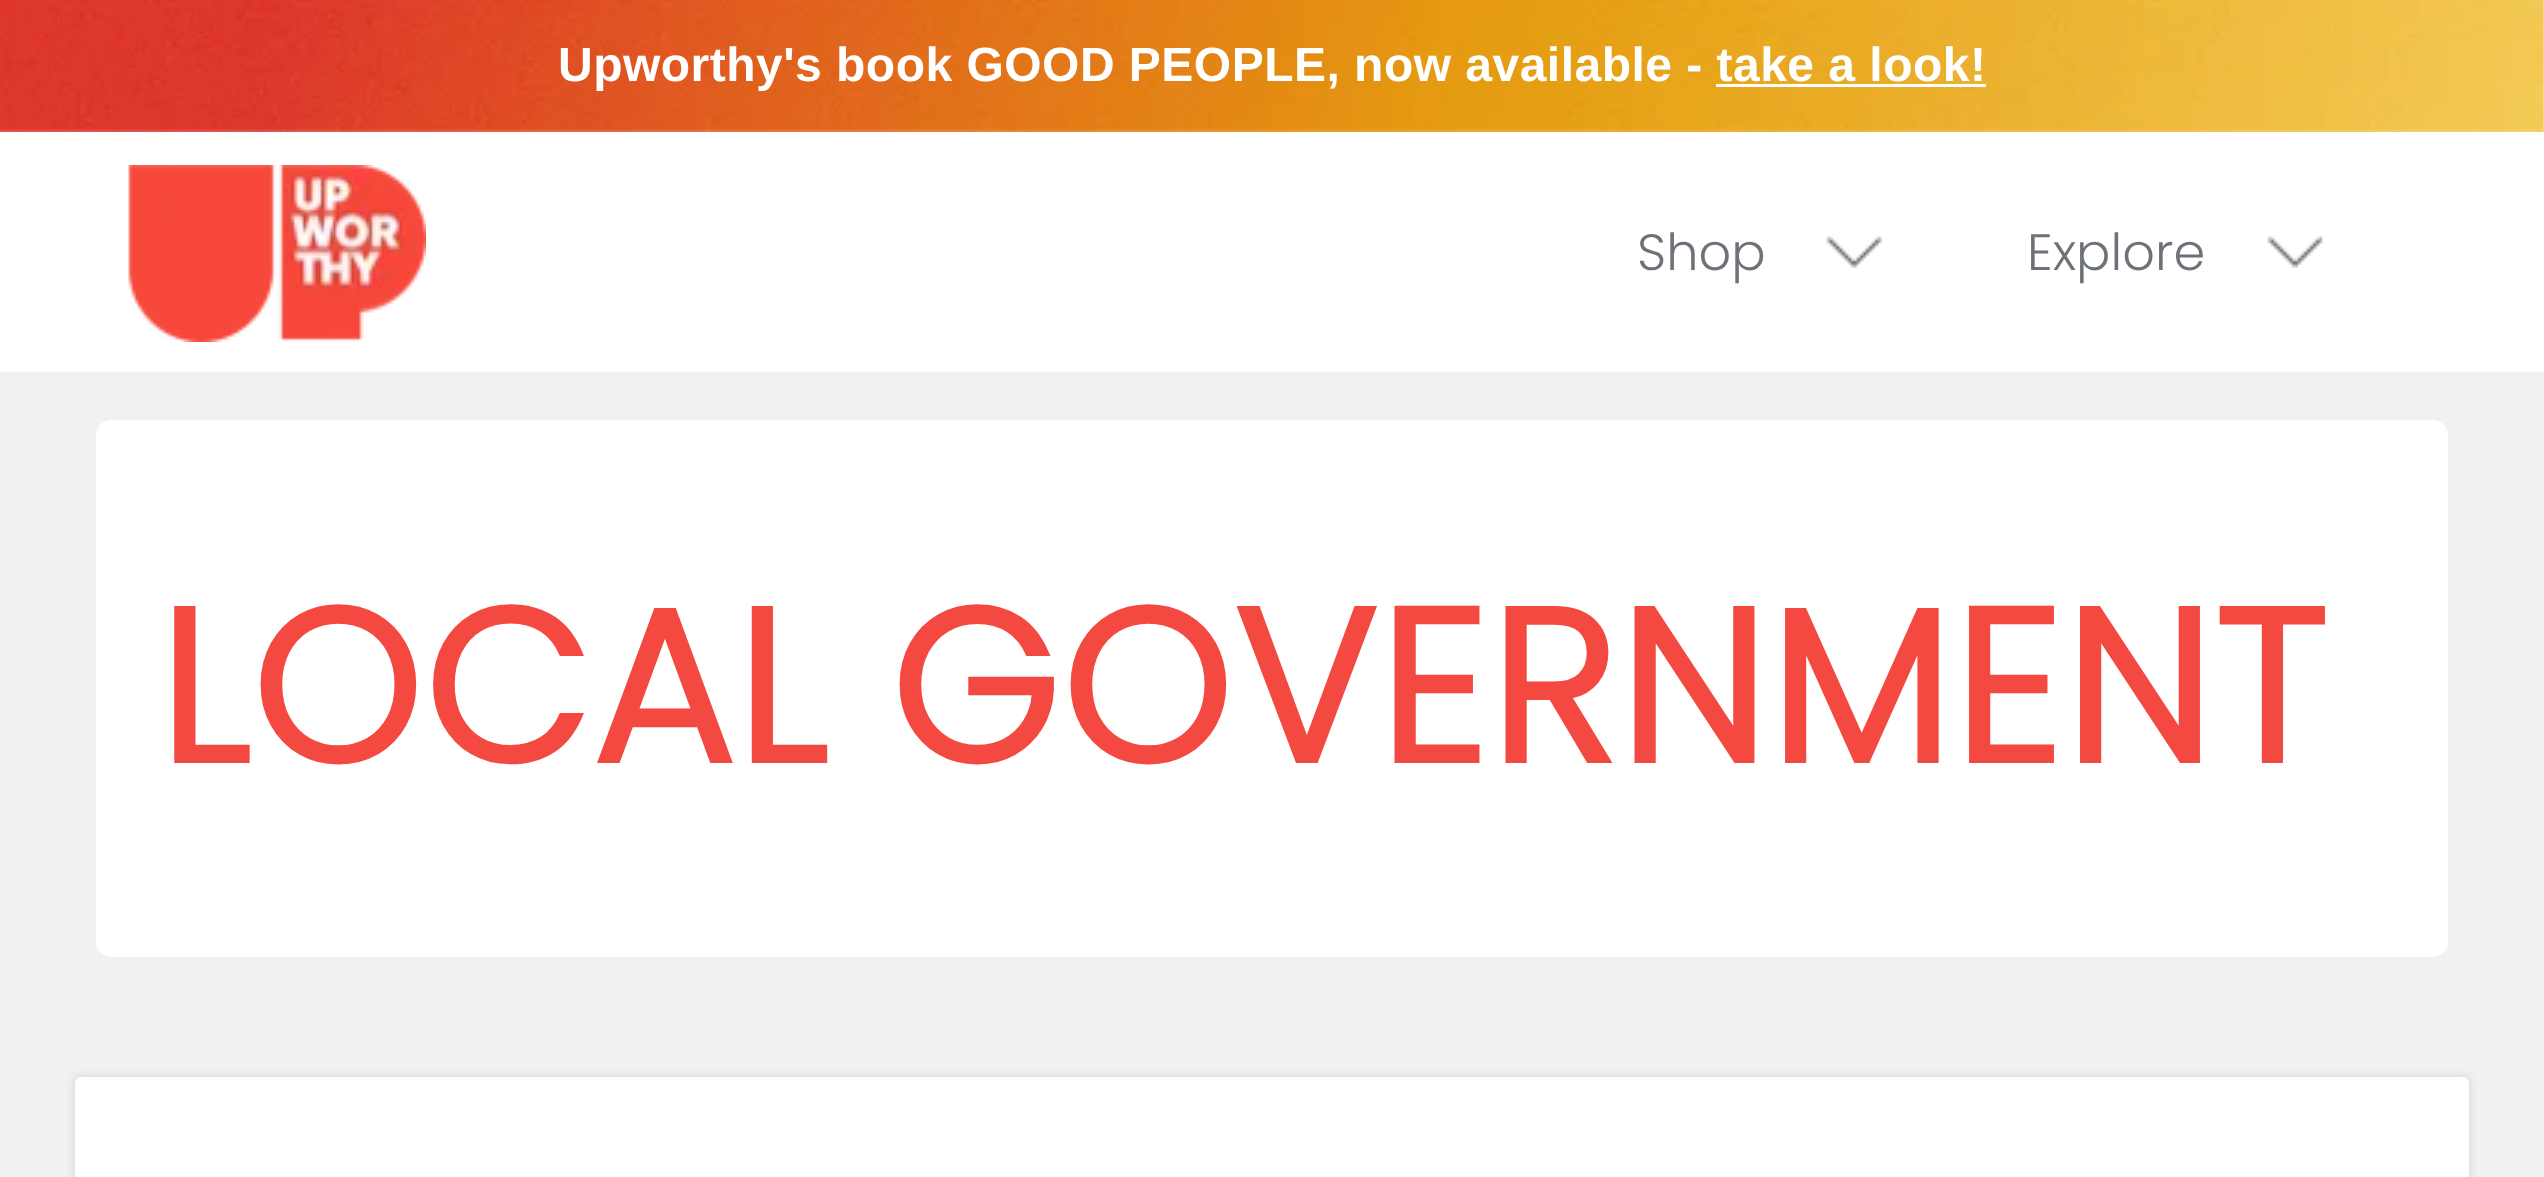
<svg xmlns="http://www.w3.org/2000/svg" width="2544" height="1177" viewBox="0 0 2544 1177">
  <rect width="100%" height="100%" fill="rgb(241,241,241)"/>
  <image x="0" y="0" width="2544" height="132" href="pic1.png"/>
  <text x="558" y="81" font-family="Liberation Sans" font-size="48" font-weight="bold" letter-spacing="0.48" fill="rgb(255,255,255)">Upworthy's book GOOD PEOPLE, now available - take a look!</text>
  <rect x="1716" y="84" width="270" height="3" fill="rgb(255,255,255)"/>
  <rect x="0" y="132" width="2544" height="240" fill="rgb(255,255,255)"/>
  <image x="128" y="165" width="298" height="177" href="pic2.png"/>
  <text x="1637" y="270" font-family="Poppins" font-size="51" font-weight="300" fill="rgb(109,114,120)">Shop</text>
  <image x="1826" y="236" width="56" height="32" href="pic3.png"/>
  <text x="2027" y="270" font-family="Poppins" font-size="51" font-weight="300" fill="rgb(109,114,120)">Explore</text>
  <image x="2267" y="236" width="56" height="32" href="pic4.png"/>
  <rect x="96" y="420" width="2352" height="537" rx="15" fill="rgb(255,255,255)"/>
  <text x="157" y="763" font-family="Poppins" font-size="216" font-weight="bold" letter-spacing="2.25" fill="rgb(244,73,65)">LOCAL GOVERNMENT</text>
  <rect x="75" y="1077" width="2394" height="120" rx="6" fill="rgb(204,204,204)" filter="blur(4.5px)"/>
  <rect x="75" y="1077" width="2394" height="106" rx="6" fill="rgb(255,255,255)"/>
</svg>
